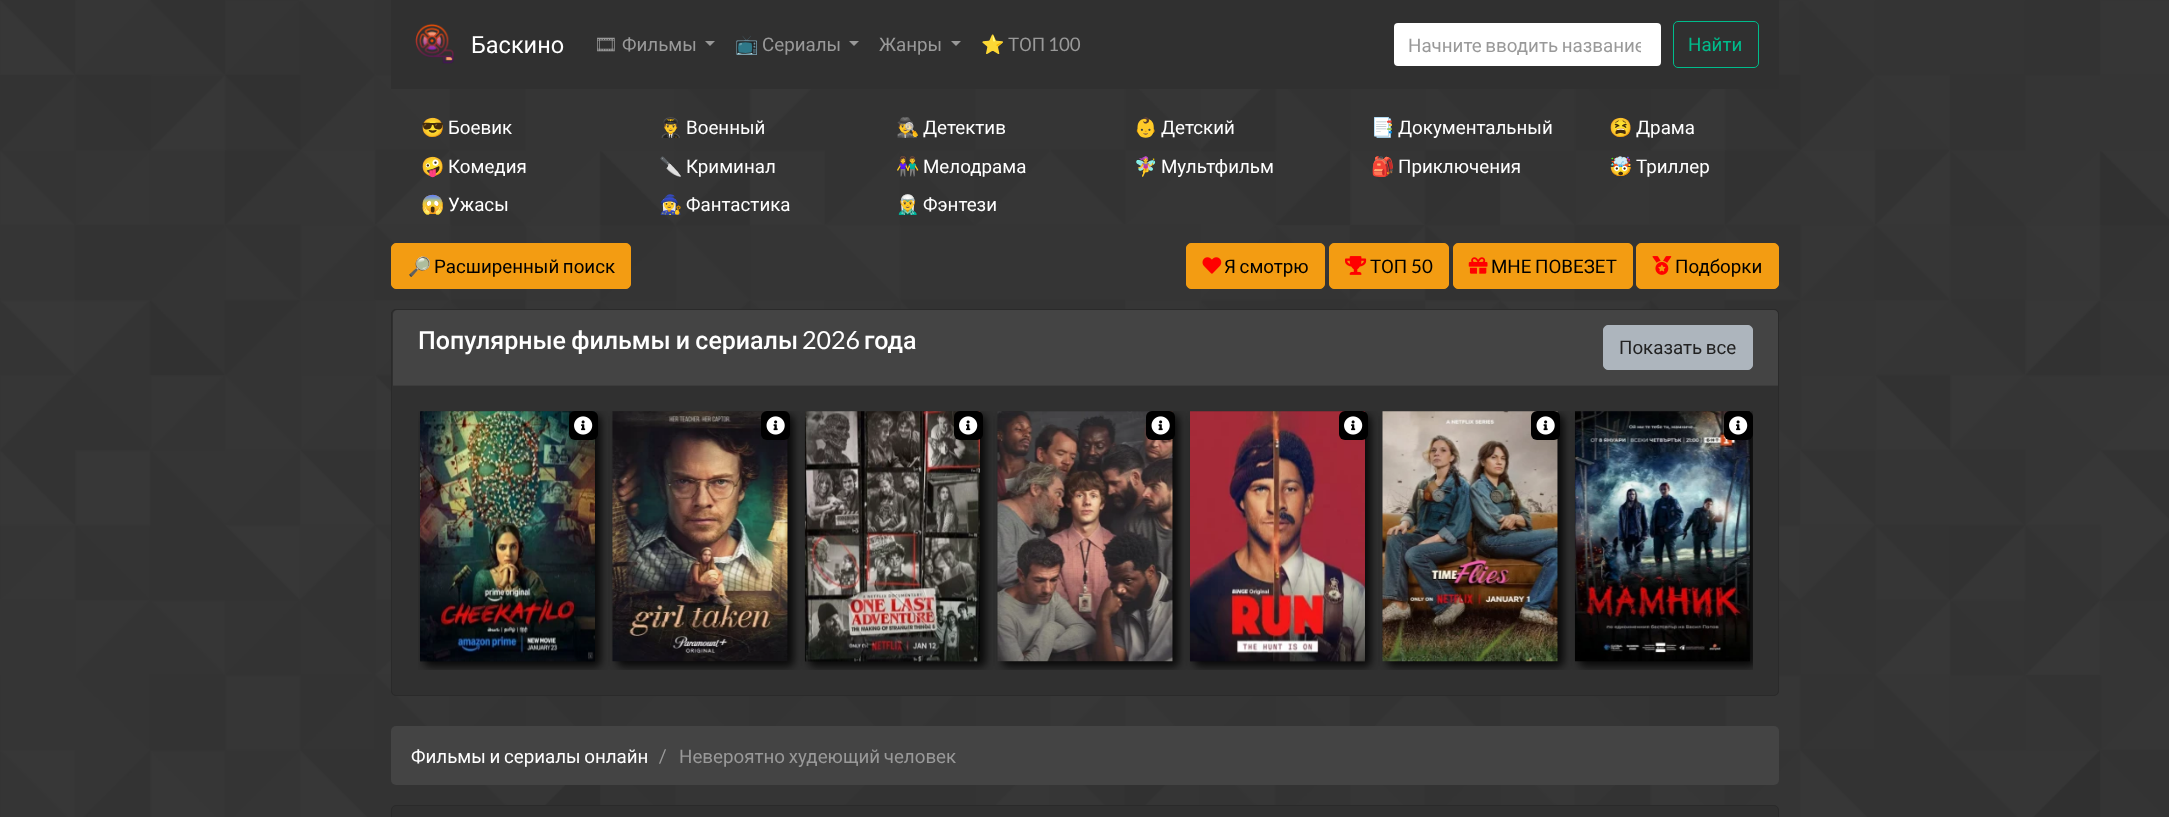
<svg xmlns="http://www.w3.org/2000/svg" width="2169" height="817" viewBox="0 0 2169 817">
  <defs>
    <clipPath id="clip1"><rect x="1409" y="33" width="232" height="23"/></clipPath>
    <clipPath id="clip2"><rect x="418" y="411" width="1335" height="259"/></clipPath>
  </defs>
  <rect width="100%" height="100%" fill="rgb(255,255,255)"/>
  <image x="0" y="0" width="2169" height="817" href="pic1.png"/>
  <rect x="391" y="0" width="1388" height="89" fill="rgb(48,48,48)"/>
  <image x="415" y="23" width="39" height="41" href="pic2.png"/>
  <text x="471" y="53" font-family="Roboto" font-size="23.5" fill="rgb(255,255,255)">Баскино</text>
  <text x="594" y="51" font-family="Noto Emoji" font-size="18.75" fill="rgb(153,153,153)">🎞</text>
  <text x="622" y="51" font-family="Roboto" font-size="18.75" fill="rgb(153,153,153)">Фильмы</text>
  <path d="M705 41H715L710 46Z" fill="rgb(152,152,152)"/>
  <text x="735" y="51" font-family="Noto Color Emoji" font-size="18.75" fill="rgb(153,153,153)">📺</text>
  <text x="762" y="51" font-family="Roboto" font-size="18.75" fill="rgb(153,153,153)">Сериалы</text>
  <path d="M849 41H859L854 46Z" fill="rgb(152,152,152)"/>
  <text x="879" y="51" font-family="Roboto" font-size="18.75" fill="rgb(153,153,153)">Жанры</text>
  <path d="M951 41H961L956 46Z" fill="rgb(152,152,152)"/>
  <text x="981" y="51" font-family="Noto Color Emoji" font-size="18.75" fill="rgb(153,153,153)">⭐</text>
  <text x="1008" y="51" font-family="Roboto" font-size="18.75" fill="rgb(153,153,153)">ТОП</text>
  <text x="1048" y="51" font-family="Lato" font-size="18.75" fill="rgb(153,153,153)">100</text>
  <rect x="1394" y="23" width="267" height="43" rx="4" fill="rgb(255,255,255)"/>
  <g clip-path="url(#clip1)">
    <text x="1408" y="52" word-spacing="-1" font-family="Roboto" font-size="18.75" fill="rgb(153,153,153)">Начните вводить название</text>
  </g>
  <rect x="1673.5" y="21.5" width="85" height="46" rx="4.5" fill="none" stroke="rgb(0,188,140)"/>
  <text x="1688" y="51" font-family="Roboto" font-size="18.75" fill="rgb(0,188,140)">Найти</text>
  <text x="421" y="134" font-family="Noto Color Emoji" font-size="18.75" fill="rgb(255,255,255)">😎</text>
  <text x="448" y="134" font-family="Roboto" font-size="18.75" fill="rgb(255,255,255)">Боевик</text>
  <text x="659" y="134" font-family="Noto Color Emoji" font-size="18.75" fill="rgb(255,255,255)">👨‍✈️</text>
  <text x="686" y="134" font-family="Roboto" font-size="18.75" fill="rgb(255,255,255)">Военный</text>
  <text x="896" y="134" font-family="Noto Color Emoji" font-size="18.75" fill="rgb(255,255,255)">🕵️‍♂️</text>
  <text x="923" y="134" font-family="Roboto" font-size="18.75" fill="rgb(255,255,255)">Детектив</text>
  <text x="1134" y="134" font-family="Noto Color Emoji" font-size="18.75" fill="rgb(255,255,255)">👶</text>
  <text x="1161" y="134" font-family="Roboto" font-size="18.75" fill="rgb(255,255,255)">Детский</text>
  <text x="1371" y="134" font-family="Noto Color Emoji" font-size="18.75" fill="rgb(255,255,255)">📑</text>
  <text x="1398" y="134" font-family="Roboto" font-size="18.75" fill="rgb(255,255,255)">Документальный</text>
  <text x="1609" y="134" font-family="Noto Color Emoji" font-size="18.75" fill="rgb(255,255,255)">😫</text>
  <text x="1636" y="134" font-family="Roboto" font-size="18.75" fill="rgb(255,255,255)">Драма</text>
  <text x="421" y="173" font-family="Noto Color Emoji" font-size="18.75" fill="rgb(255,255,255)">🤪</text>
  <text x="448" y="173" font-family="Roboto" font-size="18.75" fill="rgb(255,255,255)">Комедия</text>
  <text x="659" y="173" font-family="Noto Color Emoji" font-size="18.75" fill="rgb(255,255,255)">🔪</text>
  <text x="686" y="173" font-family="Roboto" font-size="18.75" fill="rgb(255,255,255)">Криминал</text>
  <text x="896" y="173" font-family="Noto Color Emoji" font-size="18.75" fill="rgb(255,255,255)">👫</text>
  <text x="923" y="173" font-family="Roboto" font-size="18.75" fill="rgb(255,255,255)">Мелодрама</text>
  <text x="1134" y="173" font-family="Noto Color Emoji" font-size="18.75" fill="rgb(255,255,255)">🧚‍♀️</text>
  <text x="1161" y="173" font-family="Roboto" font-size="18.75" fill="rgb(255,255,255)">Мультфильм</text>
  <text x="1371" y="173" font-family="Noto Color Emoji" font-size="18.75" fill="rgb(255,255,255)">🎒</text>
  <text x="1398" y="173" font-family="Roboto" font-size="18.75" fill="rgb(255,255,255)">Приключения</text>
  <text x="1609" y="173" font-family="Noto Color Emoji" font-size="18.75" fill="rgb(255,255,255)">🤯</text>
  <text x="1636" y="173" font-family="Roboto" font-size="18.75" fill="rgb(255,255,255)">Триллер</text>
  <text x="421" y="211" font-family="Noto Color Emoji" font-size="18.75" fill="rgb(255,255,255)">😱</text>
  <text x="448" y="211" font-family="Roboto" font-size="18.75" fill="rgb(255,255,255)">Ужасы</text>
  <text x="659" y="211" font-family="Noto Color Emoji" font-size="18.75" fill="rgb(255,255,255)">🧙‍♀️</text>
  <text x="686" y="211" font-family="Roboto" font-size="18.75" fill="rgb(255,255,255)">Фантастика</text>
  <text x="896" y="211" font-family="Noto Color Emoji" font-size="18.75" fill="rgb(255,255,255)">🧝‍♂️</text>
  <text x="923" y="211" font-family="Roboto" font-size="18.75" fill="rgb(255,255,255)">Фэнтези</text>
  <rect x="391.5" y="243.5" width="239" height="45" rx="4.5" fill="rgb(243,156,18)" stroke="rgb(243,156,18)"/>
  <text x="408" y="273" font-family="Noto Color Emoji" font-size="18.75" fill="rgb(0,0,0)">🔎</text>
  <text x="434" y="273" word-spacing="-1" font-family="Roboto" font-size="18.75" fill="rgb(0,0,0)">Расширенный поиск</text>
  <rect x="1186.5" y="243.5" width="138" height="45" rx="4.5" fill="rgb(243,156,18)" stroke="rgb(243,156,18)"/>
  <image x="1202" y="257" width="20" height="17" href="pic3.png"/>
  <text x="1224" y="273" word-spacing="-1" font-family="Roboto" font-size="18.75" fill="rgb(0,0,0)">Я смотрю</text>
  <rect x="1329.5" y="243.5" width="119" height="45" rx="4.5" fill="rgb(243,156,18)" stroke="rgb(243,156,18)"/>
  <image x="1345" y="256" width="22" height="19" href="pic4.png"/>
  <text x="1370" y="273" font-family="Roboto" font-size="18.75" fill="rgb(0,0,0)">ТОП</text>
  <text x="1411" y="273" font-family="Lato" font-size="18.75" fill="rgb(0,0,0)">50</text>
  <rect x="1453.5" y="243.5" width="179" height="45" rx="4.5" fill="rgb(243,156,18)" stroke="rgb(243,156,18)"/>
  <image x="1468" y="257" width="20" height="17" href="pic5.png"/>
  <text x="1491" y="273" word-spacing="-1" font-family="Roboto" font-size="18.75" fill="rgb(0,0,0)">МНЕ ПОВЕЗЕТ</text>
  <rect x="1636.5" y="243.5" width="142" height="45" rx="4.5" fill="rgb(243,156,18)" stroke="rgb(243,156,18)"/>
  <image x="1652" y="256" width="20" height="19" href="pic6.png"/>
  <text x="1675" y="273" font-family="Roboto" font-size="18.75" fill="rgb(0,0,0)">Подборки</text>
  <rect x="391" y="309" width="1388" height="387" rx="5" fill="rgb(48,48,48)"/>
  <rect x="391.5" y="309.5" width="1387" height="386" rx="4.5" fill="none" stroke="rgba(0,0,0,0.12)"/>
  <path d="M397 310H1774C1776 310 1778 312 1778 314V386H393V314C393 312 395 310 397 310Z" fill="rgb(68,68,68)"/>
  <rect x="393" y="385" width="1385" height="1" fill="rgb(60,60,60)"/>
  <text x="418" y="349" word-spacing="-1" font-family="Roboto" font-size="25" font-weight="500" fill="rgb(255,255,255)">Популярные фильмы и сериалы</text>
  <text x="802" y="349" font-family="Lato" font-size="25" fill="rgb(255,255,255)">2026</text>
  <text x="864" y="349" font-family="Roboto" font-size="25" font-weight="500" fill="rgb(255,255,255)">года</text>
  <rect x="1603.5" y="325.5" width="149" height="44" rx="4.5" fill="rgb(173,181,189)" stroke="rgb(173,181,189)"/>
  <text x="1619" y="354" word-spacing="-1" font-family="Roboto" font-size="18.75" fill="rgb(34,34,34)">Показать все</text>
  <g clip-path="url(#clip2)">
    <rect x="425" y="416" width="175" height="250" rx="6" fill="rgba(0,0,0,0.54)" filter="blur(4px)"/>
    <rect x="425" y="416" width="175" height="250" fill="rgba(0,0,0,0.54)" filter="blur(4px)"/>
  </g>
  <image x="420" y="411" width="175" height="251" href="pic7.png"/>
  <rect x="569" y="411" width="29" height="29" rx="6" fill="rgb(0,0,0)"/>
  <image x="574" y="416" width="19" height="19" href="pic8.png"/>
  <g clip-path="url(#clip2)">
    <rect x="618" y="416" width="175" height="250" rx="6" fill="rgba(0,0,0,0.54)" filter="blur(4px)"/>
    <rect x="618" y="416" width="175" height="250" fill="rgba(0,0,0,0.54)" filter="blur(4px)"/>
  </g>
  <image x="612" y="411" width="176" height="251" href="pic9.png"/>
  <rect x="761" y="411" width="29" height="29" rx="6" fill="rgb(0,0,0)"/>
  <image x="766" y="416" width="19" height="19" href="pic10.png"/>
  <g clip-path="url(#clip2)">
    <rect x="810" y="416" width="175" height="250" rx="6" fill="rgba(0,0,0,0.54)" filter="blur(4px)"/>
    <rect x="810" y="416" width="175" height="250" fill="rgba(0,0,0,0.54)" filter="blur(4px)"/>
  </g>
  <image x="805" y="411" width="175" height="251" href="pic11.png"/>
  <rect x="954" y="411" width="29" height="29" rx="6" fill="rgb(0,0,0)"/>
  <image x="959" y="416" width="19" height="19" href="pic8.png"/>
  <g clip-path="url(#clip2)">
    <rect x="1003" y="416" width="175" height="250" rx="6" fill="rgba(0,0,0,0.54)" filter="blur(4px)"/>
    <rect x="1003" y="416" width="175" height="250" fill="rgba(0,0,0,0.54)" filter="blur(4px)"/>
  </g>
  <image x="997" y="411" width="176" height="251" href="pic12.png"/>
  <rect x="1146" y="411" width="29" height="29" rx="6" fill="rgb(0,0,0)"/>
  <image x="1151" y="416" width="19" height="19" href="pic10.png"/>
  <g clip-path="url(#clip2)">
    <rect x="1195" y="416" width="175" height="250" rx="6" fill="rgba(0,0,0,0.54)" filter="blur(4px)"/>
    <rect x="1195" y="416" width="175" height="250" fill="rgba(0,0,0,0.54)" filter="blur(4px)"/>
  </g>
  <image x="1190" y="411" width="175" height="251" href="pic13.png"/>
  <rect x="1339" y="411" width="29" height="29" rx="6" fill="rgb(0,0,0)"/>
  <image x="1344" y="416" width="19" height="19" href="pic8.png"/>
  <g clip-path="url(#clip2)">
    <rect x="1388" y="416" width="175" height="250" rx="6" fill="rgba(0,0,0,0.54)" filter="blur(4px)"/>
    <rect x="1388" y="416" width="175" height="250" fill="rgba(0,0,0,0.54)" filter="blur(4px)"/>
  </g>
  <image x="1382" y="411" width="176" height="251" href="pic14.png"/>
  <rect x="1531" y="411" width="29" height="29" rx="6" fill="rgb(0,0,0)"/>
  <image x="1536" y="416" width="19" height="19" href="pic10.png"/>
  <g clip-path="url(#clip2)">
    <rect x="1580" y="416" width="175" height="250" rx="6" fill="rgba(0,0,0,0.54)" filter="blur(4px)"/>
    <rect x="1580" y="416" width="175" height="250" fill="rgba(0,0,0,0.54)" filter="blur(4px)"/>
  </g>
  <image x="1575" y="411" width="175" height="251" href="pic15.png"/>
  <rect x="1724" y="411" width="29" height="29" rx="6" fill="rgb(0,0,0)"/>
  <image x="1729" y="416" width="19" height="19" href="pic8.png"/>
  <rect x="391" y="726" width="1388" height="59" rx="5" fill="rgb(68,68,68)"/>
  <text x="411" y="763" word-spacing="-1" font-family="Roboto" font-size="18.75" fill="rgb(255,255,255)">Фильмы и сериалы онлайн</text>
  <text x="659" y="763" font-family="Lato" font-size="18.75" fill="rgb(153,153,153)">/</text>
  <text x="679" y="763" word-spacing="-1" font-family="Roboto" font-size="18.75" fill="rgb(153,153,153)">Невероятно худеющий человек</text>
  <rect x="391.5" y="805.5" width="1387" height="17" rx="4.5" fill="rgb(48,48,48)" stroke="rgb(42,42,42)"/>
</svg>
